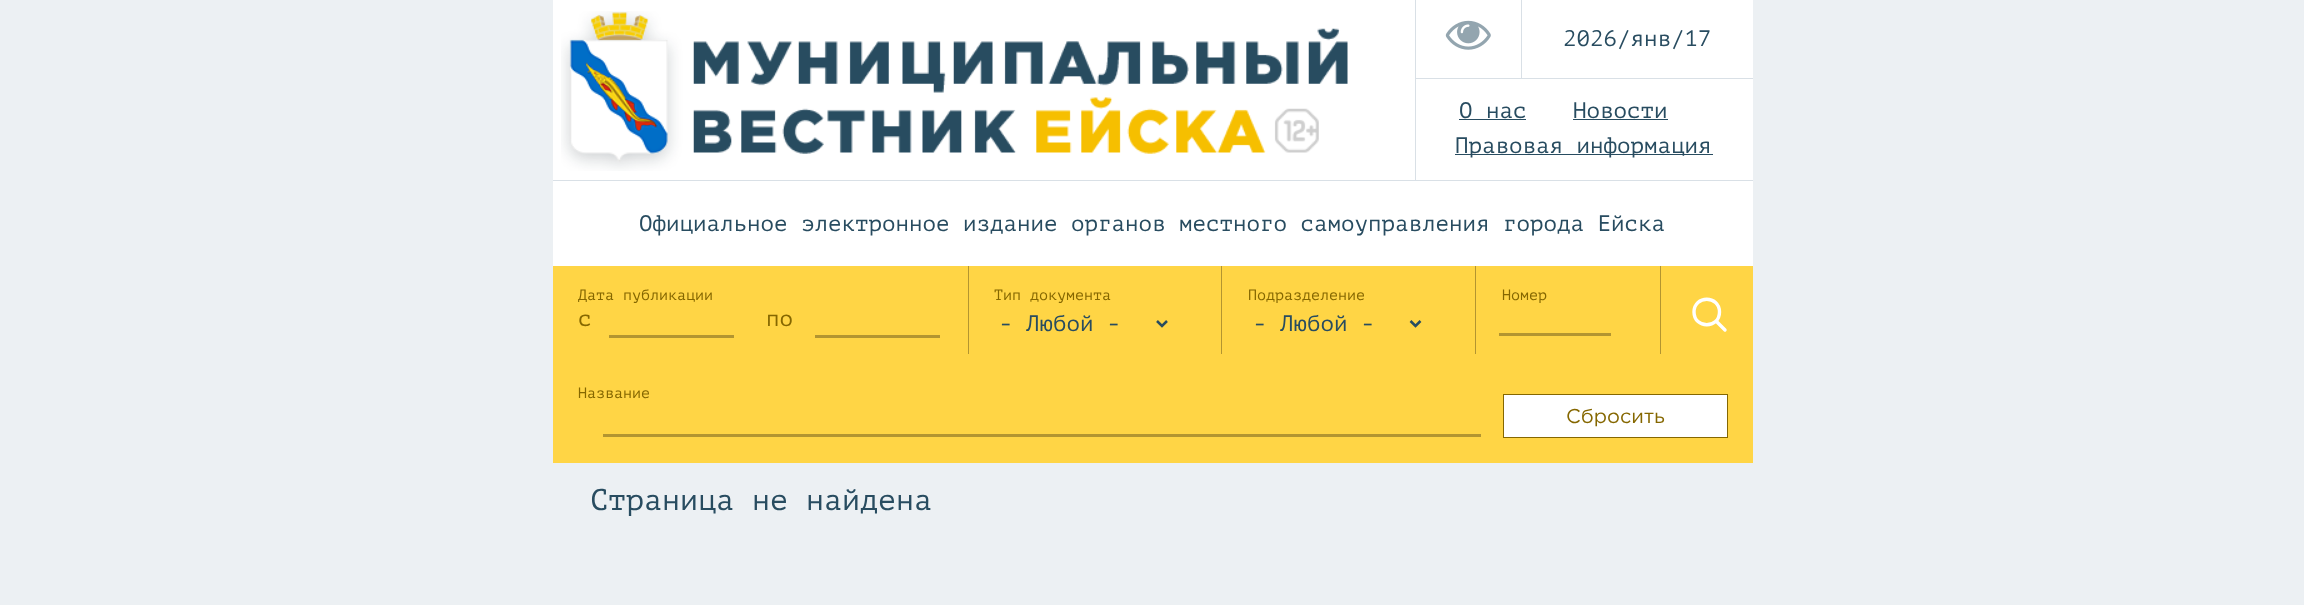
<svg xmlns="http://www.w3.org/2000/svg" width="2304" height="605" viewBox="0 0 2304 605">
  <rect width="100%" height="100%" fill="rgb(236,240,243)"/>
  <rect x="553" y="0" width="1200" height="266" fill="rgb(255,255,255)"/>
  <rect x="1415" y="0" width="1" height="181" fill="rgb(217,224,230)"/>
  <rect x="553" y="180" width="1200" height="1" fill="rgb(217,224,230)"/>
  <image x="561" y="11" width="787" height="160" href="pic1.png"/>
  <rect x="1415" y="78" width="338" height="1" fill="rgb(217,224,230)"/>
  <image x="1445" y="20" width="46" height="30" href="pic2.png"/>
  <rect x="1521" y="0" width="1" height="79" fill="rgb(217,224,230)"/>
  <g font-family="PT Mono" font-size="22.5" fill="rgb(40,76,96)">
    <text x="1563" y="46">2026/янв/17</text>
    <text x="1459" y="118">О нас</text>
  </g>
  <rect x="1459" y="119" width="67" height="1" fill="rgb(40,76,96)"/>
  <text x="1573" y="118" font-family="PT Mono" font-size="22.5" fill="rgb(40,76,96)">Новости</text>
  <rect x="1573" y="119" width="95" height="1" fill="rgb(40,76,96)"/>
  <rect x="1455" y="154" width="258" height="1" fill="rgb(40,76,96)"/>
  <g font-family="PT Mono" font-size="22.5" fill="rgb(40,76,96)">
    <text x="1455" y="153">Правовая информация</text>
    <text x="639" y="231">Официальное электронное издание органов местного самоуправления города Eйска</text>
  </g>
  <rect x="553" y="266" width="1200" height="197" fill="rgb(255,213,69)"/>
  <rect x="968" y="266" width="1" height="88" fill="rgb(179,149,48)"/>
  <text x="578" y="300" font-family="PT Mono" font-size="15" fill="rgb(133,103,0)">Дата публикации</text>
  <text x="578" y="326" font-family="PT Mono" font-size="22.5" fill="rgb(133,103,0)">с</text>
  <rect x="609" y="335" width="125" height="3" fill="rgb(179,149,48)"/>
  <text x="766" y="326" font-family="PT Mono" font-size="22.5" fill="rgb(133,103,0)">по</text>
  <rect x="815" y="335" width="125" height="3" fill="rgb(179,149,48)"/>
  <rect x="1221" y="266" width="1" height="88" fill="rgb(179,149,48)"/>
  <text x="994" y="300" font-family="PT Mono" font-size="15" fill="rgb(133,103,0)">Тип документа</text>
  <path d="M1157 321L1162 326L1167 321" fill="none" stroke="rgb(40,76,96)" stroke-width="2.5"/>
  <text x="999" y="331" font-family="PT Mono" font-size="22.5" fill="rgb(40,76,96)">- Любой -</text>
  <rect x="1475" y="266" width="1" height="88" fill="rgb(179,149,48)"/>
  <text x="1248" y="300" font-family="PT Mono" font-size="15" fill="rgb(133,103,0)">Подразделение</text>
  <path d="M1410.5 321L1415.5 326L1420.5 321" fill="none" stroke="rgb(40,76,96)" stroke-width="2.5"/>
  <text x="1253" y="331" font-family="PT Mono" font-size="22.5" fill="rgb(40,76,96)">- Любой -</text>
  <rect x="1660" y="266" width="1" height="88" fill="rgb(179,149,48)"/>
  <text x="1502" y="300" font-family="PT Mono" font-size="15" fill="rgb(133,103,0)">Номер</text>
  <rect x="1499" y="333" width="112" height="3" fill="rgb(179,149,48)"/>
  <path d="M1716 321L1725 330M1719.5 312C1719.5 329 1694 329 1694 312C1694 295 1719.5 295 1719.5 312Z" fill="none" stroke="rgb(255,255,255)" stroke-width="3.4" stroke-linecap="round" stroke-linejoin="round"/>
  <text x="578" y="398" font-family="PT Mono" font-size="15" fill="rgb(133,103,0)">Название</text>
  <rect x="603" y="434" width="878" height="3" fill="rgb(179,149,48)"/>
  <rect x="1503.5" y="394.5" width="224" height="43" fill="rgb(255,255,255)" stroke="rgb(133,103,0)"/>
  <text x="1566" y="423" font-family="Gotham" font-size="20" fill="rgb(133,103,0)">Сбросить</text>
  <text x="590" y="510" font-family="PT Mono" font-size="30" fill="rgb(40,76,96)">Страница не найдена</text>
</svg>
